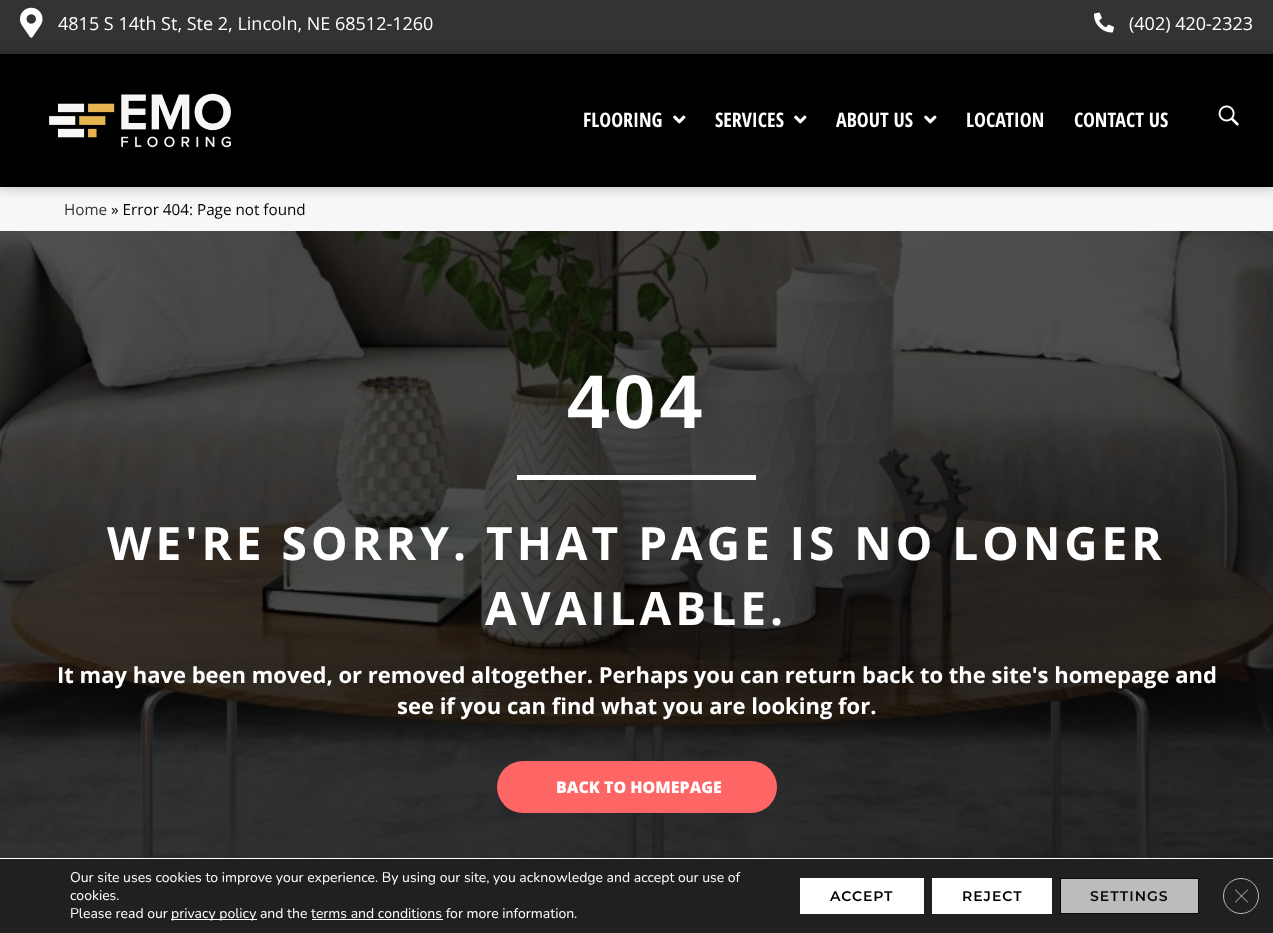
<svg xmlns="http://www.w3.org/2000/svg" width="1273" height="933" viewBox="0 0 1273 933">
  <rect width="100%" height="100%" fill="rgb(247,247,247)"/>
  <rect x="0" y="0" width="1273" height="54" fill="rgb(51,51,51)"/>
  <image x="20" y="7" width="23" height="31" href="pic1.png"/>
  <text x="58" y="30" font-family="Open Sans" font-size="18" fill="rgb(255,255,255)">4815 S 14th St, Ste 2, Lincoln, NE 68512-1260</text>
  <image x="1094" y="12" width="20" height="21" href="pic2.png"/>
  <text x="1129" y="30" font-family="Open Sans" font-size="18" fill="rgb(255,255,255)">(402) 420-2323</text>
  <rect x="-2" y="52" width="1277" height="137" fill="rgba(0,0,0,0.2)" filter="blur(6px)"/>
  <rect x="0" y="54" width="1273" height="133" fill="rgb(0,0,0)"/>
  <image x="49" y="93" width="182" height="55" href="pic3.png"/>
  <text x="583" y="127" font-family="Open Sans Condensed" font-size="20" font-weight="bold" fill="rgb(255,255,255)">FLOORING</text>
  <image x="673" y="115" width="13" height="9" href="pic4.png"/>
  <text x="715" y="127" font-family="Open Sans Condensed" font-size="20" font-weight="bold" fill="rgb(255,255,255)">SERVICES</text>
  <image x="794" y="115" width="13" height="9" href="pic4.png"/>
  <text x="836" y="127" font-family="Open Sans Condensed" font-size="20" font-weight="bold" fill="rgb(255,255,255)">ABOUT US</text>
  <image x="924" y="115" width="13" height="9" href="pic4.png"/>
  <g font-family="Open Sans Condensed" font-size="20" font-weight="bold" fill="rgb(255,255,255)">
    <text x="966" y="127">LOCATION</text>
    <text x="1074" y="127">CONTACT US</text>
  </g>
  <image x="1218" y="105" width="21" height="21" href="pic5.png"/>
  <text x="64" y="215" font-family="Open Sans" font-size="15.25" fill="rgb(51,51,51)">Home</text>
  <text x="111" y="215" font-family="Open Sans" font-size="15.25" fill="rgb(0,0,0)">» Error 404: Page not found</text>
  <image x="0" y="231" width="1273" height="627" href="pic6.png"/>
  <text x="567" y="428" font-family="Liberation Sans" font-size="76" font-weight="bold" letter-spacing="4" fill="rgb(255,255,255)">404</text>
  <rect x="517" y="475" width="239" height="5" fill="rgb(255,255,255)"/>
  <g font-family="Open Sans" font-size="46" font-weight="bold" letter-spacing="4" fill="rgb(255,255,255)">
    <text x="107" y="560">WE'RE SORRY. THAT PAGE IS NO LONGER</text>
    <text x="485" y="625">AVAILABLE.</text>
  </g>
  <g font-family="Open Sans" font-size="22" font-weight="bold" fill="rgb(255,255,255)">
    <text x="57" y="683">It may have been moved, or removed altogether. Perhaps you can return back to the site's homepage and</text>
    <text x="397" y="714">see if you can find what you are looking for.</text>
  </g>
  <rect x="497" y="761" width="280" height="52" rx="26" fill="rgb(254,102,102)"/>
  <text x="556" y="793" font-family="Open Sans" font-size="16" font-weight="800" fill="rgb(255,255,255)">BACK TO HOMEPAGE</text>
  <rect x="0" y="859" width="1273" height="74" fill="rgb(32,32,32)"/>
  <rect x="0" y="858" width="1273" height="1" fill="rgb(255,255,255)"/>
  <g font-family="Nunito" font-size="14" fill="rgb(255,255,255)">
    <text>
      <tspan x="70" y="882">Our site uses cookies to improve your experience. By using our site, you acknowledge and accept our use of</tspan>
      <tspan x="70" y="900">cookies.</tspan>
      <tspan x="70" y="918">Please read our</tspan>
    </text>
  </g>
  <rect x="171" y="919" width="86" height="1" fill="rgb(255,255,255)"/>
  <text x="171" y="918" font-family="Nunito" font-size="14" fill="rgb(255,255,255)">privacy policy and the terms and conditions for more information.</text>
  <rect x="312" y="919" width="131" height="1" fill="rgb(255,255,255)"/>
  <rect x="800" y="878" width="124" height="36" fill="rgb(255,255,255)"/>
  <text x="830" y="901" font-family="Montserrat" font-size="14" font-weight="600" letter-spacing="1" fill="rgb(0,0,0)">ACCEPT</text>
  <rect x="932" y="878" width="120" height="36" fill="rgb(255,255,255)"/>
  <text x="962" y="901" font-family="Montserrat" font-size="14" font-weight="600" letter-spacing="1" fill="rgb(0,0,0)">REJECT</text>
  <rect x="1060.5" y="878.5" width="138" height="35" fill="rgb(188,188,188)" stroke="rgb(10,10,10)"/>
  <text x="1090" y="901" font-family="Montserrat" font-size="14" font-weight="600" letter-spacing="1" fill="rgb(10,10,10)">SETTINGS</text>
  <circle cx="1241" cy="896" r="17.5" fill="none" stroke="rgb(188,188,188)"/>
  <path d="M1247.5 889.5L1248 890L1235.5 902.5L1235 902Z" fill="rgb(188,188,188)"/>
  <path d="M1235 890L1235.5 889.5L1248 902L1247.5 902.5Z" fill="rgb(188,188,188)"/>
</svg>
